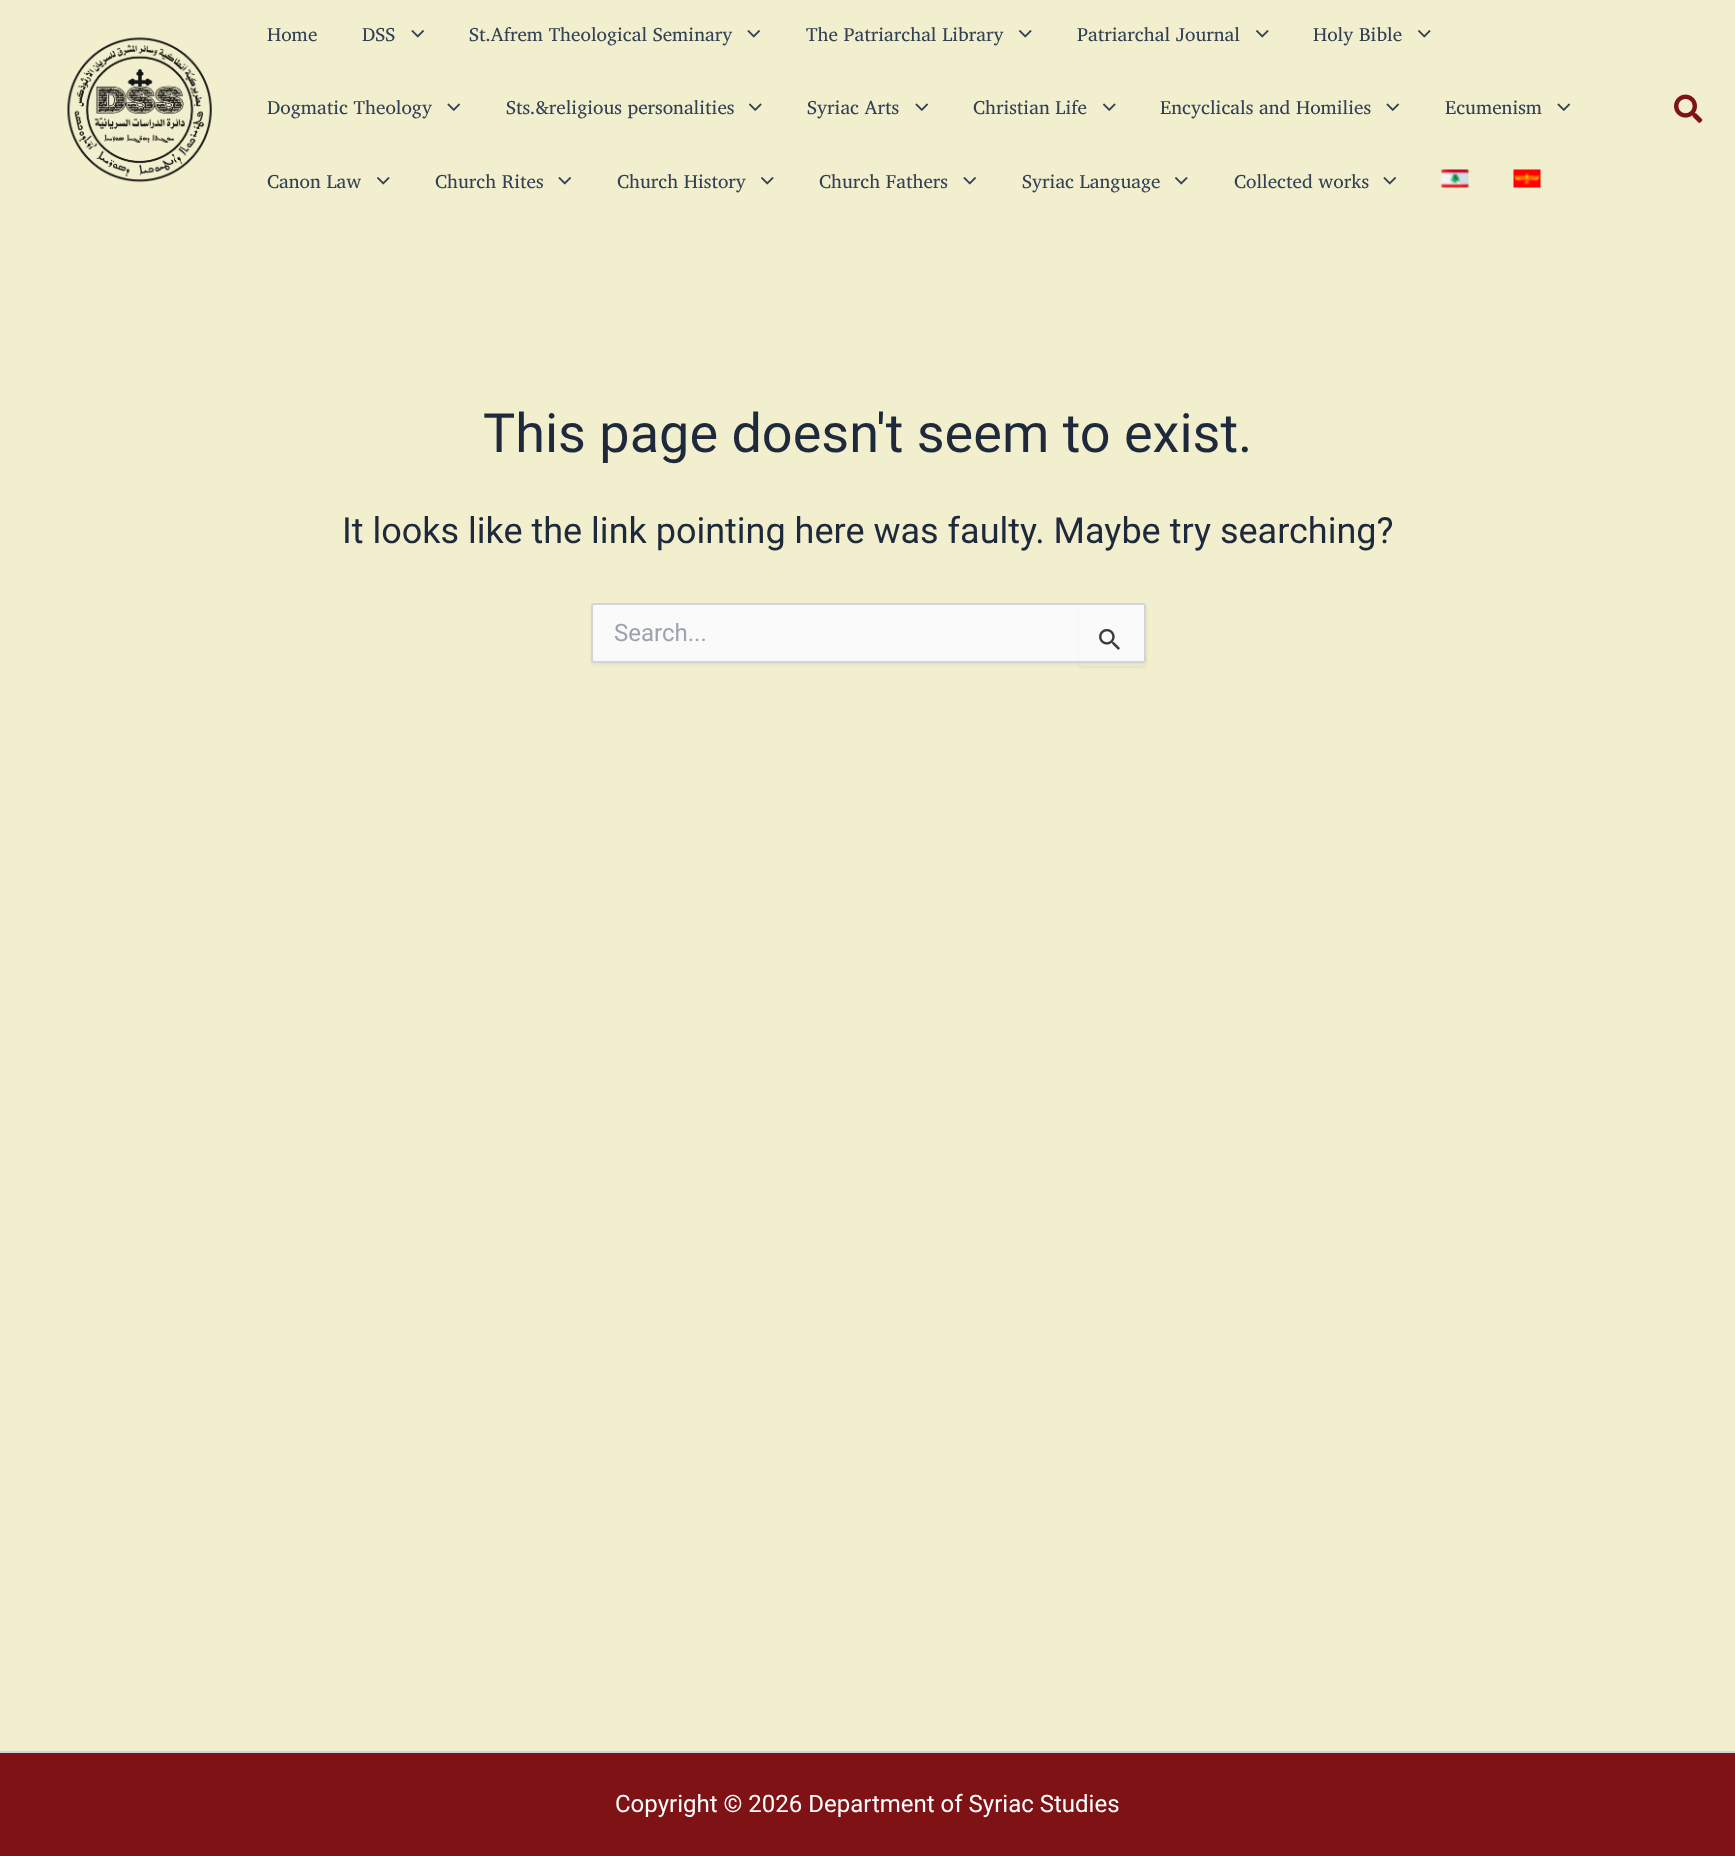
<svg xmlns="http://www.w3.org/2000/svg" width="1735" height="1856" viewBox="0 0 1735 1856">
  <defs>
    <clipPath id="clip1"><path d="M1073 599H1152V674H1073ZM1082 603H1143C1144.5 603 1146 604.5 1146 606V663C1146 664.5 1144.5 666 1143 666H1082C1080.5 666 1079 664.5 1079 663V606C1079 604.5 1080.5 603 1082 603Z" clip-rule="evenodd"/></clipPath>
  </defs>
  <rect width="100%" height="100%" fill="rgb(242,239,206)"/>
  <image x="67" y="37" width="145" height="146" href="pic1.png"/>
  <g font-family="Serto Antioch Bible" font-size="22.5" fill="rgb(51,65,85)">
    <text x="267" y="41">Home</text>
    <text x="362" y="41">DSS</text>
  </g>
  <image x="411" y="30" width="14" height="8" href="pic2.png"/>
  <text x="469" y="41" font-family="Serto Antioch Bible" font-size="22.5" fill="rgb(51,65,85)">St.Afrem Theological Seminary</text>
  <image x="747" y="30" width="14" height="8" href="pic2.png"/>
  <text x="806" y="41" font-family="Serto Antioch Bible" font-size="22.5" fill="rgb(51,65,85)">The Patriarchal Library</text>
  <image x="1019" y="30" width="13" height="8" href="pic3.png"/>
  <text x="1077" y="41" font-family="Serto Antioch Bible" font-size="22.5" fill="rgb(51,65,85)">Patriarchal Journal</text>
  <image x="1256" y="30" width="13" height="8" href="pic3.png"/>
  <text x="1313" y="41" font-family="Serto Antioch Bible" font-size="22.5" fill="rgb(51,65,85)">Holy Bible</text>
  <image x="1418" y="30" width="13" height="8" href="pic3.png"/>
  <text x="267" y="114" font-family="Serto Antioch Bible" font-size="22.5" fill="rgb(51,65,85)">Dogmatic Theology</text>
  <image x="447" y="103" width="14" height="8" href="pic4.png"/>
  <text x="506" y="114" font-family="Serto Antioch Bible" font-size="22.5" fill="rgb(51,65,85)">Sts.&amp;religious personalities</text>
  <image x="749" y="103" width="13" height="8" href="pic5.png"/>
  <text x="807" y="114" font-family="Serto Antioch Bible" font-size="22.5" fill="rgb(51,65,85)">Syriac Arts</text>
  <image x="915" y="103" width="14" height="8" href="pic4.png"/>
  <text x="973" y="114" font-family="Serto Antioch Bible" font-size="22.5" fill="rgb(51,65,85)">Christian Life</text>
  <image x="1103" y="103" width="13" height="8" href="pic5.png"/>
  <text x="1160" y="114" font-family="Serto Antioch Bible" font-size="22.5" fill="rgb(51,65,85)">Encyclicals and Homilies</text>
  <image x="1386" y="103" width="14" height="8" href="pic4.png"/>
  <text x="1445" y="114" font-family="Serto Antioch Bible" font-size="22.5" fill="rgb(51,65,85)">Ecumenism</text>
  <image x="1557" y="103" width="14" height="8" href="pic4.png"/>
  <text x="267" y="188" font-family="Serto Antioch Bible" font-size="22.5" fill="rgb(51,65,85)">Canon Law</text>
  <image x="377" y="177" width="13" height="8" href="pic3.png"/>
  <text x="435" y="188" font-family="Serto Antioch Bible" font-size="22.5" fill="rgb(51,65,85)">Church Rites</text>
  <image x="558" y="177" width="14" height="8" href="pic2.png"/>
  <text x="617" y="188" font-family="Serto Antioch Bible" font-size="22.5" fill="rgb(51,65,85)">Church History</text>
  <image x="761" y="177" width="13" height="8" href="pic3.png"/>
  <text x="819" y="188" font-family="Serto Antioch Bible" font-size="22.5" fill="rgb(51,65,85)">Church Fathers</text>
  <image x="963" y="177" width="14" height="8" href="pic2.png"/>
  <text x="1022" y="188" font-family="Serto Antioch Bible" font-size="22.5" fill="rgb(51,65,85)">Syriac Language</text>
  <image x="1175" y="177" width="13" height="8" href="pic3.png"/>
  <text x="1234" y="188" font-family="Serto Antioch Bible" font-size="22.5" fill="rgb(51,65,85)">Collected works</text>
  <image x="1383" y="177" width="14" height="8" href="pic2.png"/>
  <image x="1441" y="169" width="28" height="19" href="pic6.png"/>
  <image x="1513" y="169" width="28" height="19" href="pic7.png"/>
  <image x="1674" y="94" width="29" height="29" href="pic8.png"/>
  <text x="483" y="452" font-family="Roboto" font-size="54" fill="rgb(30,41,59)">This page doesn't seem to exist.</text>
  <text x="342" y="543" font-family="Roboto" font-size="36" fill="rgb(30,41,59)">It looks like the link pointing here was faulty. Maybe try searching?</text>
  <rect x="591" y="605" width="555" height="60" rx="3" fill="rgba(0,0,0,0.05)" filter="blur(1.5px)"/>
  <rect x="592" y="604" width="553" height="58" rx="2" fill="rgb(250,250,250)" stroke="rgb(209,213,219)" stroke-width="2"/>
  <text x="614" y="641" font-family="Roboto" font-size="24" fill="rgb(156,163,175)">Search...</text>
  <image x="1099" y="629" width="21" height="21" href="pic9.png"/>
  <g clip-path="url(#clip1)">
    <rect x="1079" y="605" width="67" height="63" rx="3" fill="rgba(0,0,0,0.05)" filter="blur(1.5px)"/>
  </g>
  <rect x="0" y="1753" width="1735" height="103" fill="rgb(127,18,21)"/>
  <rect x="0" y="1751" width="1735" height="2" fill="rgb(209,213,219)"/>
  <text x="615" y="1812" font-family="Roboto" font-size="24" fill="rgb(255,255,255)">Copyright © 2026 Department of Syriac Studies</text>
</svg>
